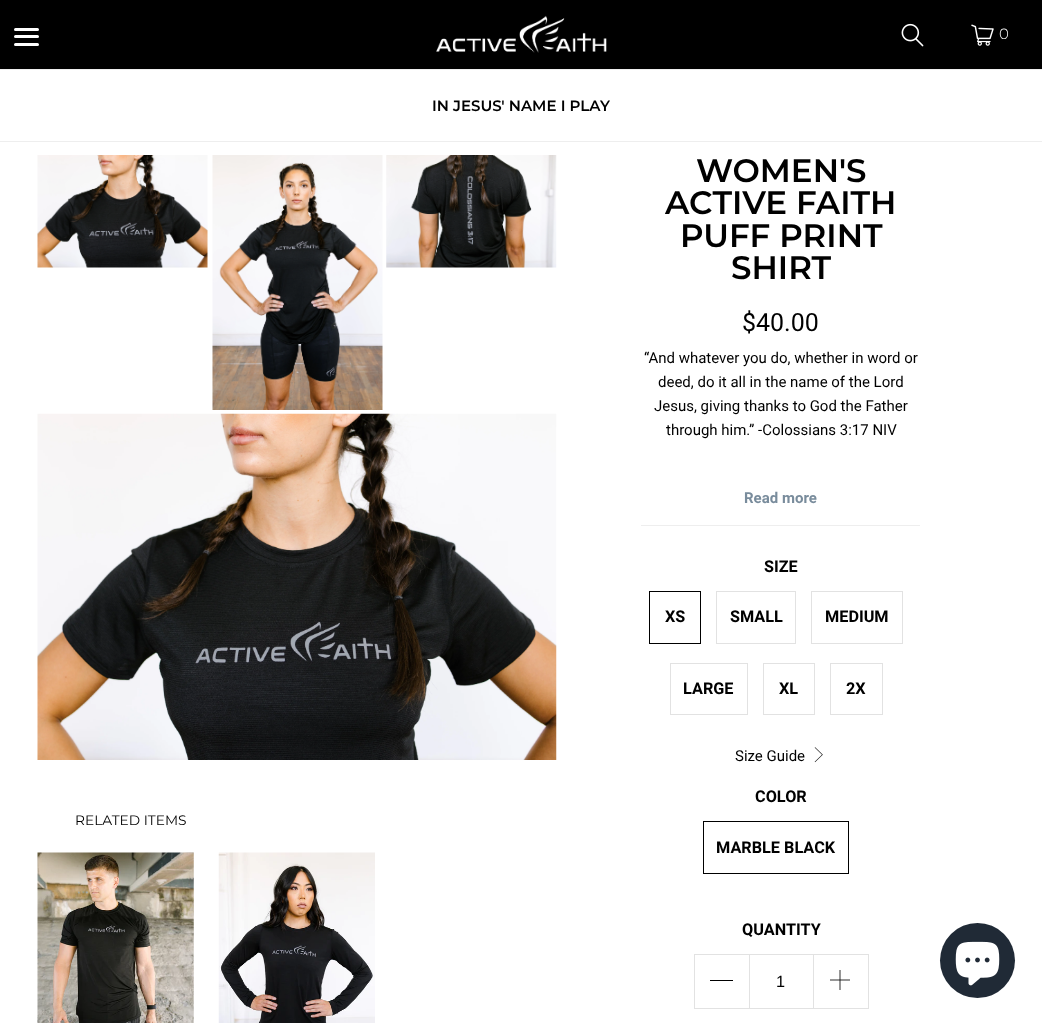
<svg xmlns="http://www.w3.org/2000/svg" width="1042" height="1023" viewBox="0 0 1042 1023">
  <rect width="100%" height="100%" fill="rgb(255,255,255)"/>
  <rect x="0" y="69" width="1042" height="1" fill="rgb(238,238,238)"/>
  <rect x="0" y="0" width="1042" height="69" fill="rgb(0,0,0)"/>
  <rect x="14" y="28" width="25" height="3" rx="1.5" fill="rgb(255,255,255)"/>
  <rect x="14" y="35" width="25" height="3" rx="1.5" fill="rgb(255,255,255)"/>
  <rect x="14" y="43" width="25" height="3" rx="1.5" fill="rgb(255,255,255)"/>
  <image x="436" y="15" width="171" height="38" href="pic1.png"/>
  <image x="901" y="23" width="23" height="24" href="pic2.png"/>
  <image x="971" y="24" width="23" height="22" href="pic3.png"/>
  <text x="999" y="39" font-family="Montserrat" font-size="15" font-weight="300" letter-spacing="1" fill="rgb(255,255,255)">0</text>
  <rect x="0" y="141" width="1042" height="1" fill="rgb(238,238,238)"/>
  <text x="432" y="111" font-family="Montserrat" font-size="15" font-weight="600" fill="rgb(0,0,0)">IN JESUS' NAME I PLAY</text>
  <image x="37" y="155" width="171" height="113" href="pic4.png"/>
  <image x="212" y="155" width="171" height="255" href="pic5.png"/>
  <image x="386" y="155" width="171" height="113" href="pic6.png"/>
  <image x="37" y="413" width="520" height="347" href="pic7.png"/>
  <text x="75" y="825" font-family="Montserrat" font-size="13.75" fill="rgb(0,0,0)">RELATED ITEMS</text>
  <image x="37" y="852" width="157" height="171" href="pic8.png"/>
  <image x="218" y="852" width="157" height="171" href="pic9.png"/>
  <g font-family="Montserrat" font-size="32.5" font-weight="600" fill="rgb(0,0,0)">
    <text x="696" y="182">WOMEN'S</text>
    <text x="665" y="214">ACTIVE FAITH</text>
    <text x="680" y="247">PUFF PRINT</text>
    <text x="731" y="279">SHIRT</text>
  </g>
  <text x="742" y="331" font-family="Roboto" font-size="25" fill="rgb(0,0,0)">$40.00</text>
  <rect x="641" y="525" width="279" height="1" fill="rgb(238,238,238)"/>
  <g font-family="Roboto" font-size="15" fill="rgb(0,0,0)">
    <text x="644" y="363">“And whatever you do, whether in word or</text>
    <text x="658" y="387">deed, do it all in the name of the Lord</text>
    <text x="654" y="411">Jesus, giving thanks to God the Father</text>
    <text x="666" y="435">through him.” -Colossians 3:17 NIV</text>
  </g>
  <text x="744" y="503" font-family="Roboto" font-size="15" font-weight="bold" fill="rgb(121,140,156)">Read more</text>
  <text x="764" y="572" font-family="Roboto" font-size="16.25" font-weight="bold" fill="rgb(0,0,0)">SIZE</text>
  <rect x="649.5" y="591.5" width="51" height="52" fill="none" stroke="rgb(0,0,0)"/>
  <text x="665" y="622" font-family="Roboto" font-size="16.25" font-weight="bold" fill="rgb(0,0,0)">XS</text>
  <rect x="716.5" y="591.5" width="79" height="52" fill="none" stroke="rgb(226,226,226)"/>
  <text x="730" y="622" font-family="Roboto" font-size="16.25" font-weight="bold" fill="rgb(0,0,0)">SMALL</text>
  <rect x="811.5" y="591.5" width="91" height="52" fill="none" stroke="rgb(226,226,226)"/>
  <text x="825" y="622" font-family="Roboto" font-size="16.25" font-weight="bold" fill="rgb(0,0,0)">MEDIUM</text>
  <rect x="670.5" y="663.5" width="77" height="51" fill="none" stroke="rgb(226,226,226)"/>
  <text x="683" y="694" font-family="Roboto" font-size="16.25" font-weight="bold" fill="rgb(0,0,0)">LARGE</text>
  <rect x="763.5" y="663.5" width="51" height="51" fill="none" stroke="rgb(226,226,226)"/>
  <text x="779" y="694" font-family="Roboto" font-size="16.25" font-weight="bold" fill="rgb(0,0,0)">XL</text>
  <rect x="830.5" y="663.5" width="52" height="51" fill="none" stroke="rgb(226,226,226)"/>
  <text x="846" y="694" font-family="Roboto" font-size="16.25" font-weight="bold" fill="rgb(0,0,0)">2X</text>
  <text x="735" y="761" font-family="Roboto" font-size="15" fill="rgb(0,0,0)">Size Guide</text>
  <image x="814" y="747" width="9" height="16" href="pic10.png"/>
  <text x="755" y="802" font-family="Roboto" font-size="16.25" font-weight="bold" fill="rgb(0,0,0)">COLOR</text>
  <rect x="703.5" y="821.5" width="145" height="52" fill="none" stroke="rgb(0,0,0)"/>
  <g font-family="Roboto" font-size="16.25" font-weight="bold" fill="rgb(0,0,0)">
    <text x="716" y="853">MARBLE BLACK</text>
    <text x="742" y="935">QUANTITY</text>
  </g>
  <rect x="694" y="954" width="55" height="1" fill="rgb(226,226,226)"/>
  <rect x="694" y="1008" width="55" height="1" fill="rgb(226,226,226)"/>
  <rect x="694" y="954" width="1" height="55" fill="rgb(226,226,226)"/>
  <rect x="710" y="980" width="23" height="1" fill="rgb(0,0,0)"/>
  <rect x="749.5" y="954.5" width="64" height="54" fill="none" stroke="rgb(226,226,226)"/>
  <text x="776" y="987" font-family="Liberation Sans" font-size="16.25" fill="rgb(0,0,0)">1</text>
  <rect x="814" y="954" width="55" height="1" fill="rgb(226,226,226)"/>
  <rect x="868" y="954" width="1" height="55" fill="rgb(226,226,226)"/>
  <rect x="814" y="1008" width="55" height="1" fill="rgb(226,226,226)"/>
  <image x="830" y="970" width="20" height="20" href="pic11.png"/>
  <circle cx="977.5" cy="960.5" r="37.5" fill="rgb(32,42,54)"/>
  <image x="955" y="941" width="45" height="45" href="pic12.png"/>
</svg>
